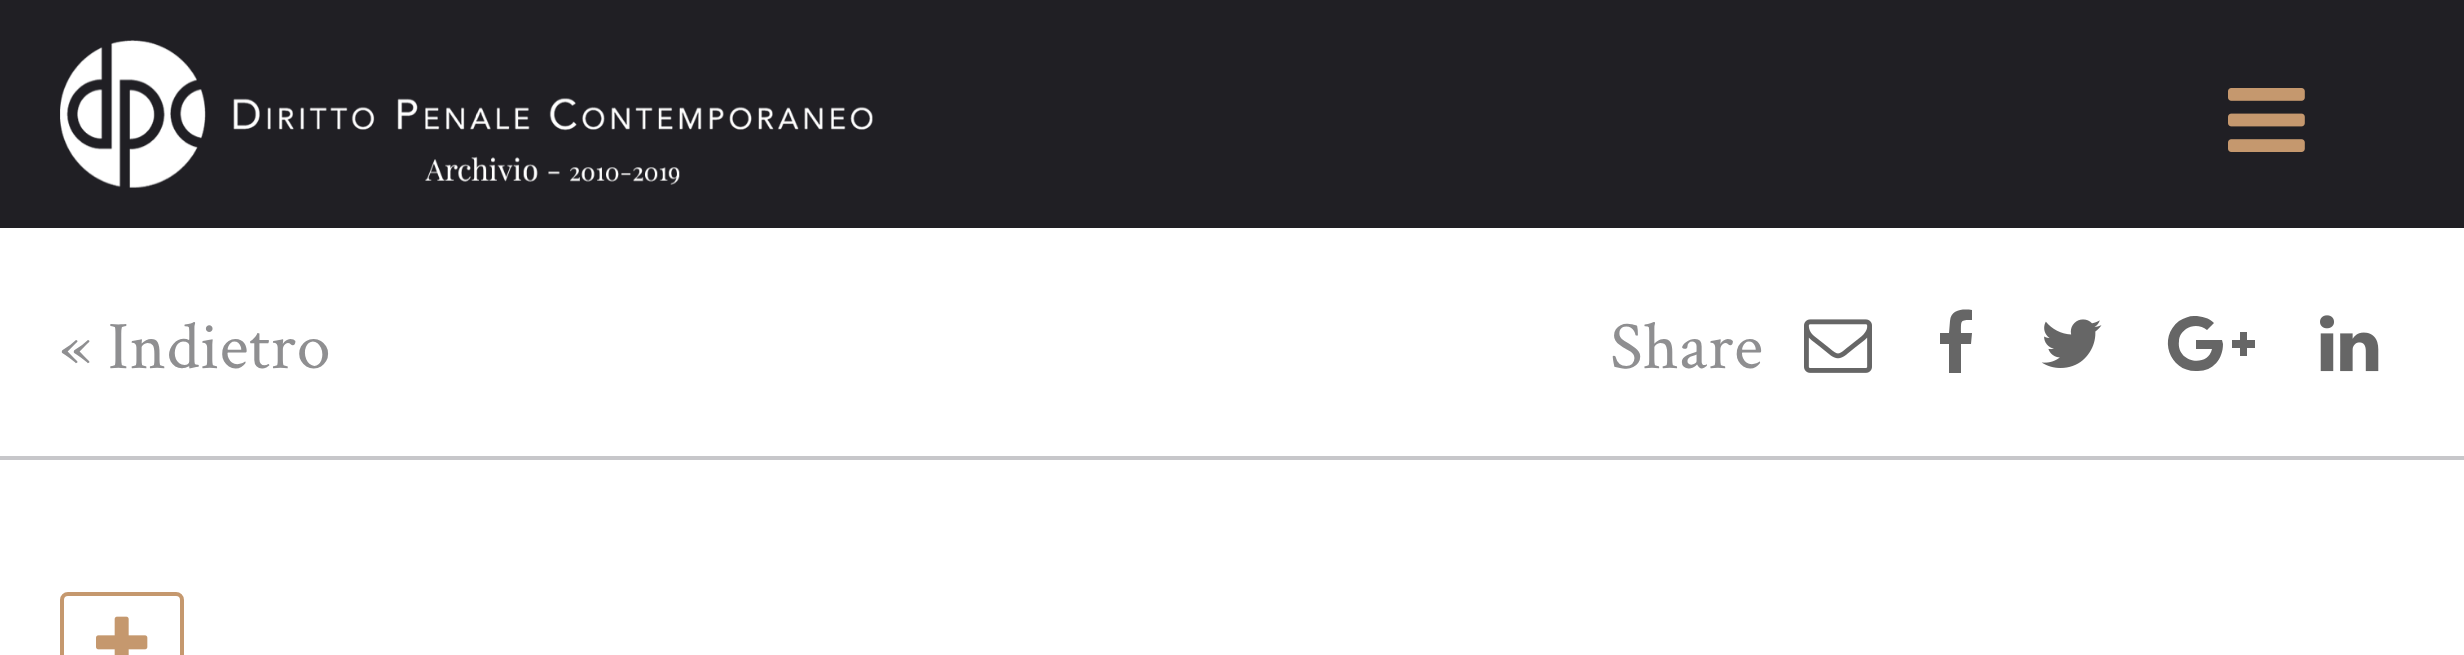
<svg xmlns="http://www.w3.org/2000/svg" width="2464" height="655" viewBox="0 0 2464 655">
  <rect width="100%" height="100%" fill="rgb(255,255,255)"/>
  <rect x="0" y="0" width="2464" height="228" fill="rgb(32,31,36)"/>
  <image x="60" y="40" width="813" height="148" href="pic1.png"/>
  <image x="2228" y="88" width="77" height="64" href="pic2.png"/>
  <g font-family="Crimson Text" font-size="68" letter-spacing="0.75" fill="rgb(143,143,145)">
    <text x="60" y="368">« Indietro</text>
    <text x="1610" y="368">Share</text>
  </g>
  <image x="1804" y="319" width="68" height="54" href="pic3.png"/>
  <path d="M1972 310V320C1960 320 1961 320 1961 333H1972L1971 344H1961V373H1949V344H1940V333H1949L1950 321C1951 309 1963 309 1972 310Z" fill="rgb(102,102,102)"/>
  <image x="2041" y="319" width="61" height="49" href="pic4.png"/>
  <path d="M2223 344C2223 359 2213 371 2198 371C2170 373 2157 338 2179 321C2184 318 2189 316 2194 316C2202 316 2209 318 2214 323L2207 330C2201 325 2192 325 2186 329C2182 332 2179 336 2179 341C2176 363 2208 368 2212 349H2196V340H2222ZM2255 340V348H2247V356H2240V348H2232V340H2240V332H2247V340Z" fill="rgb(102,102,102)"/>
  <image x="2320" y="315" width="59" height="57" href="pic5.png"/>
  <rect x="0" y="456" width="2464" height="4" fill="rgb(199,199,202)"/>
  <rect x="62" y="594" width="120" height="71" rx="6" fill="none" stroke="rgb(197,152,110)" stroke-width="4"/>
  <image x="96" y="616" width="52" height="39" href="pic6.png"/>
</svg>
